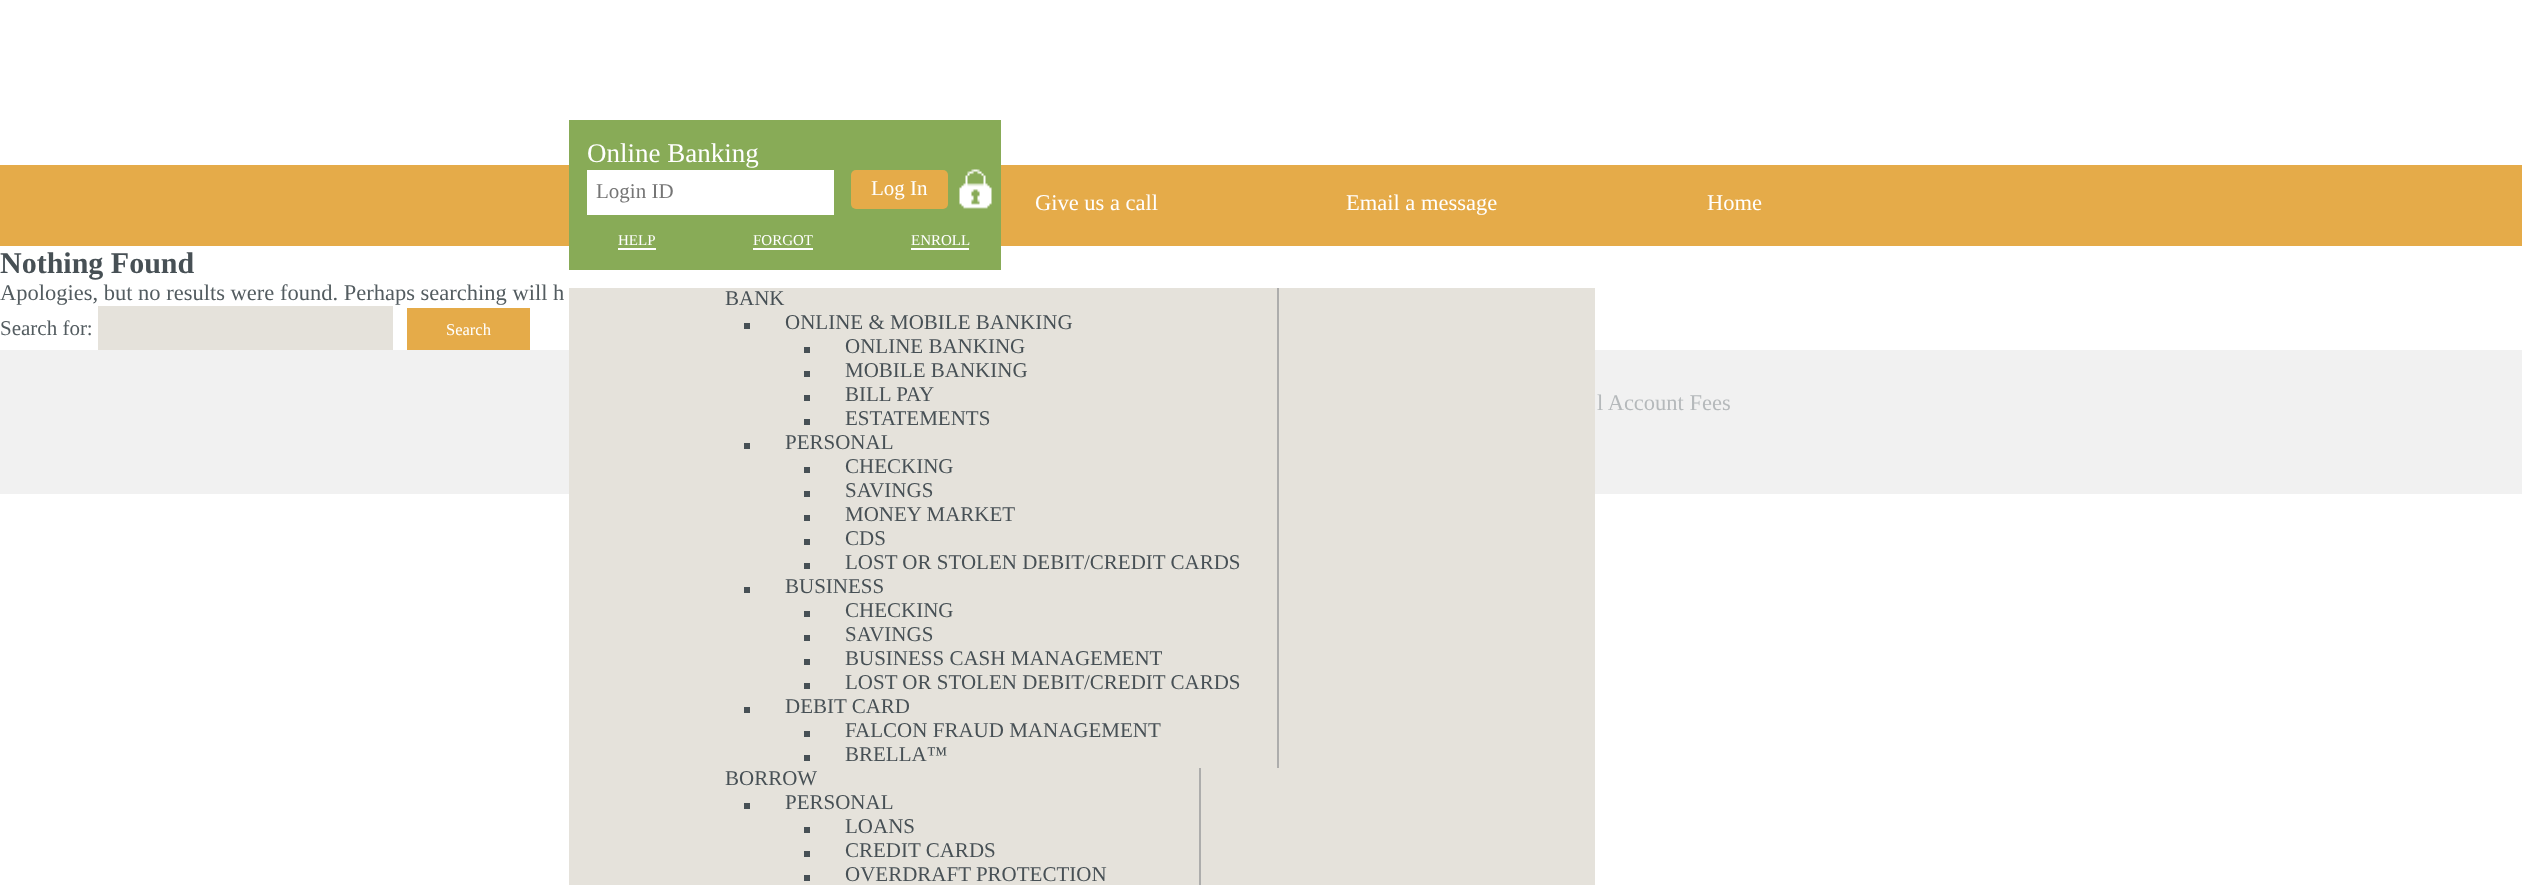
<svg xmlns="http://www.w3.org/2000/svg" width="2522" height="885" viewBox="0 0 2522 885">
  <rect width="100%" height="100%" fill="rgb(255,255,255)"/>
  <rect x="0" y="165" width="2522" height="81" fill="rgb(229,171,73)"/>
  <rect x="569" y="120" width="432" height="150" fill="rgb(136,171,87)"/>
  <text x="587" y="162" font-family="Liberation Serif" font-size="27" fill="rgb(255,255,255)">Online Banking</text>
  <rect x="587" y="170" width="247" height="45" fill="rgb(255,255,255)"/>
  <text x="596" y="198" font-family="Liberation Serif" font-size="21" fill="rgb(117,117,117)">Login ID</text>
  <rect x="851" y="170" width="97" height="39" rx="5" fill="rgb(229,171,73)"/>
  <text x="871" y="195" font-family="Liberation Serif" font-size="21" fill="rgb(255,255,255)">Log In</text>
  <image x="959" y="169" width="33" height="40" href="pic1.png"/>
  <text x="618" y="245" font-family="Liberation Serif" font-size="15" fill="rgb(255,255,255)">HELP</text>
  <rect x="618" y="248" width="38" height="2" fill="rgb(255,255,255)"/>
  <text x="753" y="245" font-family="Liberation Serif" font-size="15" fill="rgb(255,255,255)">FORGOT</text>
  <rect x="753" y="248" width="60" height="2" fill="rgb(255,255,255)"/>
  <text x="911" y="245" font-family="Liberation Serif" font-size="15" fill="rgb(255,255,255)">ENROLL</text>
  <rect x="911" y="248" width="58" height="2" fill="rgb(255,255,255)"/>
  <rect x="0" y="350" width="2522" height="144" fill="rgb(241,241,241)"/>
  <rect x="569" y="288" width="1026" height="597" fill="rgb(229,226,219)"/>
  <rect x="1277" y="288" width="2" height="480" fill="rgb(173,173,172)"/>
  <text x="725" y="305" font-family="Liberation Serif" font-size="21" fill="rgb(71,80,85)">BANK</text>
  <rect x="744" y="323" width="6" height="6" fill="rgb(71,80,85)"/>
  <text x="785" y="329" font-family="Liberation Serif" font-size="21" fill="rgb(71,80,85)">ONLINE &amp; MOBILE BANKING</text>
  <rect x="804" y="347" width="6" height="6" fill="rgb(71,80,85)"/>
  <text x="845" y="353" font-family="Liberation Serif" font-size="21" fill="rgb(71,80,85)">ONLINE BANKING</text>
  <rect x="804" y="371" width="6" height="6" fill="rgb(71,80,85)"/>
  <text x="845" y="377" font-family="Liberation Serif" font-size="21" fill="rgb(71,80,85)">MOBILE BANKING</text>
  <rect x="804" y="395" width="6" height="6" fill="rgb(71,80,85)"/>
  <text x="845" y="401" font-family="Liberation Serif" font-size="21" fill="rgb(71,80,85)">BILL PAY</text>
  <rect x="804" y="419" width="6" height="6" fill="rgb(71,80,85)"/>
  <text x="845" y="425" font-family="Liberation Serif" font-size="21" fill="rgb(71,80,85)">ESTATEMENTS</text>
  <rect x="744" y="443" width="6" height="6" fill="rgb(71,80,85)"/>
  <text x="785" y="449" font-family="Liberation Serif" font-size="21" fill="rgb(71,80,85)">PERSONAL</text>
  <rect x="804" y="467" width="6" height="6" fill="rgb(71,80,85)"/>
  <text x="845" y="473" font-family="Liberation Serif" font-size="21" fill="rgb(71,80,85)">CHECKING</text>
  <rect x="804" y="491" width="6" height="6" fill="rgb(71,80,85)"/>
  <text x="845" y="497" font-family="Liberation Serif" font-size="21" fill="rgb(71,80,85)">SAVINGS</text>
  <rect x="804" y="515" width="6" height="6" fill="rgb(71,80,85)"/>
  <text x="845" y="521" font-family="Liberation Serif" font-size="21" fill="rgb(71,80,85)">MONEY MARKET</text>
  <rect x="804" y="539" width="6" height="6" fill="rgb(71,80,85)"/>
  <text x="845" y="545" font-family="Liberation Serif" font-size="21" fill="rgb(71,80,85)">CDS</text>
  <rect x="804" y="563" width="6" height="6" fill="rgb(71,80,85)"/>
  <text x="845" y="569" font-family="Liberation Serif" font-size="21" fill="rgb(71,80,85)">LOST OR STOLEN DEBIT/CREDIT CARDS</text>
  <rect x="744" y="587" width="6" height="6" fill="rgb(71,80,85)"/>
  <text x="785" y="593" font-family="Liberation Serif" font-size="21" fill="rgb(71,80,85)">BUSINESS</text>
  <rect x="804" y="611" width="6" height="6" fill="rgb(71,80,85)"/>
  <text x="845" y="617" font-family="Liberation Serif" font-size="21" fill="rgb(71,80,85)">CHECKING</text>
  <rect x="804" y="635" width="6" height="6" fill="rgb(71,80,85)"/>
  <text x="845" y="641" font-family="Liberation Serif" font-size="21" fill="rgb(71,80,85)">SAVINGS</text>
  <rect x="804" y="659" width="6" height="6" fill="rgb(71,80,85)"/>
  <text x="845" y="665" font-family="Liberation Serif" font-size="21" fill="rgb(71,80,85)">BUSINESS CASH MANAGEMENT</text>
  <rect x="804" y="683" width="6" height="6" fill="rgb(71,80,85)"/>
  <text x="845" y="689" font-family="Liberation Serif" font-size="21" fill="rgb(71,80,85)">LOST OR STOLEN DEBIT/CREDIT CARDS</text>
  <rect x="744" y="707" width="6" height="6" fill="rgb(71,80,85)"/>
  <text x="785" y="713" font-family="Liberation Serif" font-size="21" fill="rgb(71,80,85)">DEBIT CARD</text>
  <rect x="804" y="731" width="6" height="6" fill="rgb(71,80,85)"/>
  <text x="845" y="737" font-family="Liberation Serif" font-size="21" fill="rgb(71,80,85)">FALCON FRAUD MANAGEMENT</text>
  <rect x="804" y="755" width="6" height="6" fill="rgb(71,80,85)"/>
  <text x="845" y="761" font-family="Liberation Serif" font-size="21" fill="rgb(71,80,85)">BRELLA™</text>
  <rect x="1199" y="768" width="2" height="117" fill="rgb(173,173,172)"/>
  <text x="725" y="785" font-family="Liberation Serif" font-size="21" fill="rgb(71,80,85)">BORROW</text>
  <rect x="744" y="803" width="6" height="6" fill="rgb(71,80,85)"/>
  <text x="785" y="809" font-family="Liberation Serif" font-size="21" fill="rgb(71,80,85)">PERSONAL</text>
  <rect x="804" y="827" width="6" height="6" fill="rgb(71,80,85)"/>
  <text x="845" y="833" font-family="Liberation Serif" font-size="21" fill="rgb(71,80,85)">LOANS</text>
  <rect x="804" y="851" width="6" height="6" fill="rgb(71,80,85)"/>
  <text x="845" y="857" font-family="Liberation Serif" font-size="21" fill="rgb(71,80,85)">CREDIT CARDS</text>
  <rect x="804" y="875" width="6" height="6" fill="rgb(71,80,85)"/>
  <text x="845" y="881" font-family="Liberation Serif" font-size="21" fill="rgb(71,80,85)">OVERDRAFT PROTECTION</text>
  <g font-family="Liberation Serif" font-size="22.5" fill="rgb(255,255,255)">
    <text x="1035" y="210">Give us a call</text>
    <text x="1346" y="210">Email a message</text>
    <text x="1707" y="210">Home</text>
  </g>
  <text x="0" y="273" font-family="Liberation Serif" font-size="30" font-weight="bold" fill="rgb(71,80,85)">Nothing Found</text>
  <text x="0" y="300" font-family="Liberation Serif" font-size="22.5" fill="rgb(83,92,96)">Apologies, but no results were found. Perhaps searching will h</text>
  <text x="0" y="335" font-family="Liberation Serif" font-size="21" fill="rgb(83,92,96)">Search for:</text>
  <rect x="98" y="306" width="295" height="44" fill="rgb(229,226,219)"/>
  <rect x="407" y="308" width="123" height="42" fill="rgb(229,171,73)"/>
  <text x="446" y="335" font-family="Liberation Serif" font-size="16.5" fill="rgb(255,255,255)">Search</text>
  <text x="1597" y="410" font-family="Liberation Serif" font-size="22.5" fill="rgb(181,185,187)">l Account Fees</text>
</svg>
